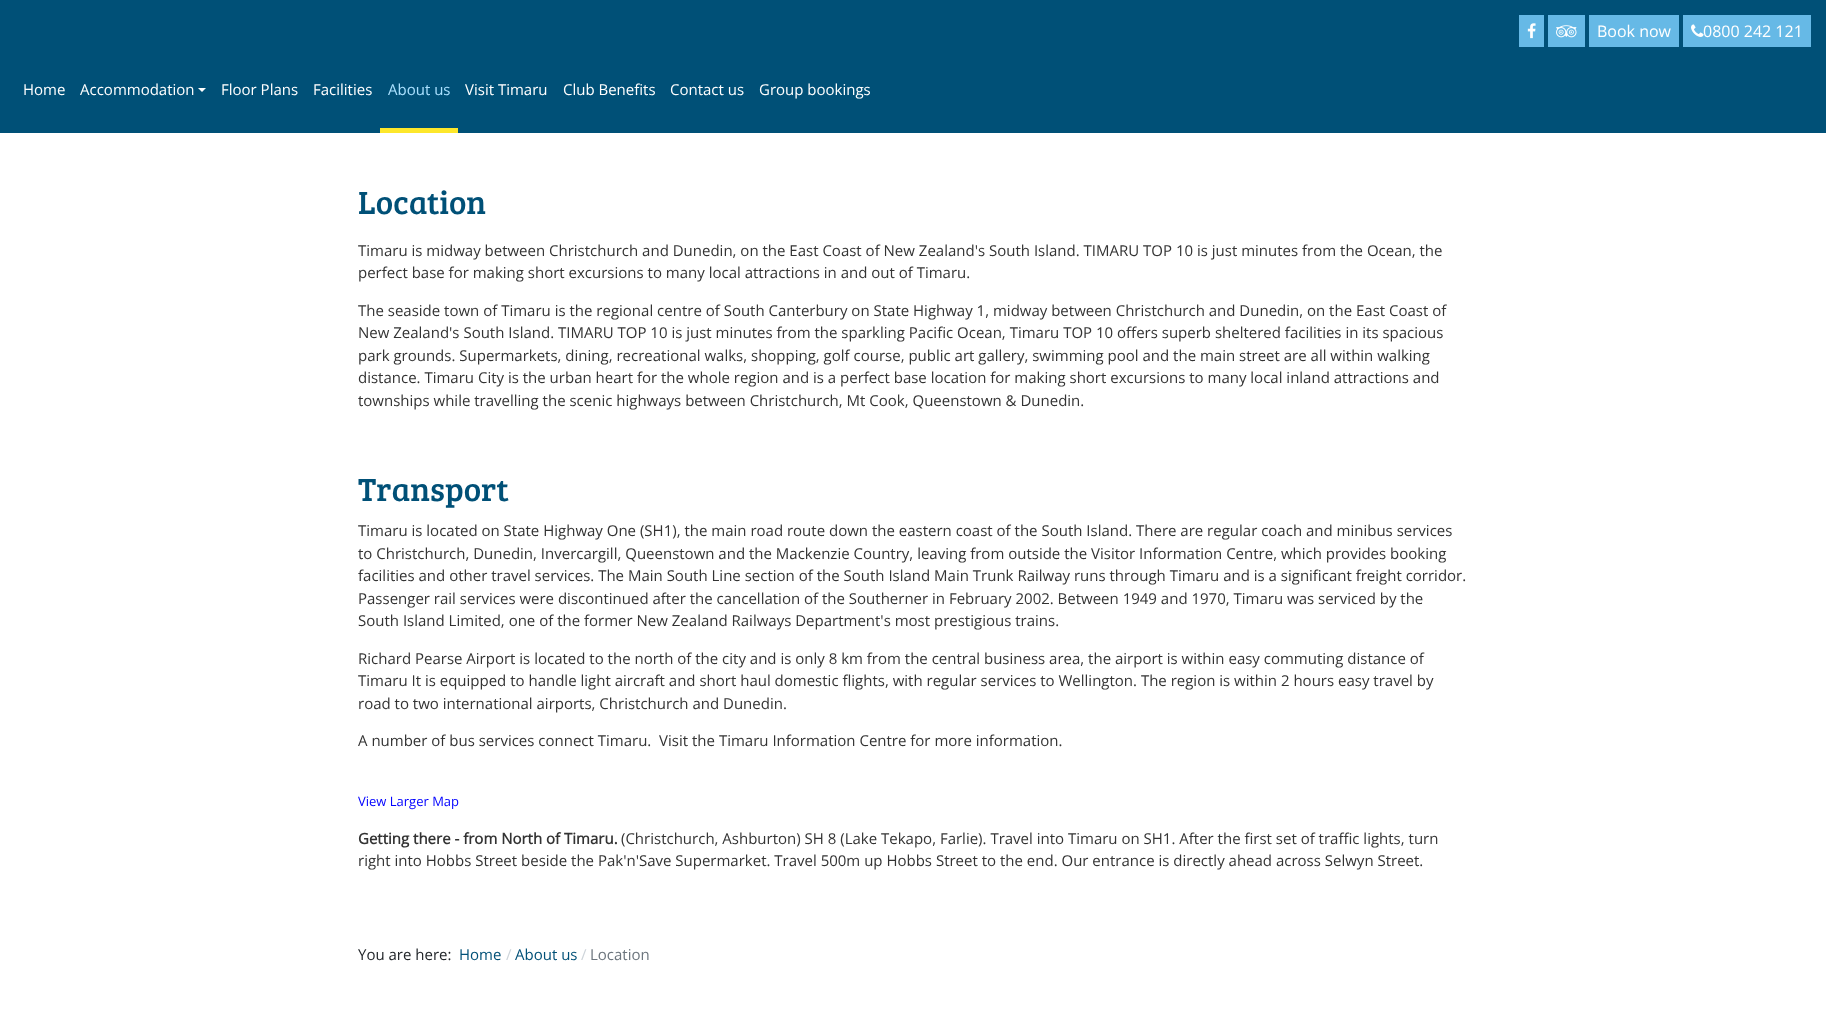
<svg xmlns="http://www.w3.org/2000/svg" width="1826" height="1015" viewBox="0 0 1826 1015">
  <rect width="100%" height="100%" fill="rgb(255,255,255)"/>
  <rect x="0" y="0" width="1826" height="133" fill="rgb(0,80,119)"/>
  <rect x="1519" y="15" width="25" height="32" fill="rgb(102,185,230)"/>
  <image x="1527" y="23" width="9" height="16" href="pic1.png"/>
  <rect x="1548" y="15" width="37" height="32" fill="rgb(102,185,230)"/>
  <image x="1556" y="25" width="21" height="13" href="pic2.png"/>
  <rect x="1589" y="15" width="90" height="32" fill="rgb(102,185,230)"/>
  <text x="1597" y="37" font-family="Open Sans" font-size="16" fill="rgb(255,255,255)">Book now</text>
  <rect x="1683" y="15" width="128" height="32" fill="rgb(102,185,230)"/>
  <image x="1691" y="24" width="13" height="13" href="pic3.png"/>
  <text x="1703" y="37" font-family="Open Sans" font-size="16" fill="rgb(255,255,255)">0800 242 121</text>
  <g font-family="Open Sans" font-size="15" fill="rgb(255,255,255)">
    <text x="23" y="95">Home</text>
    <text x="80" y="95">Accommodation</text>
  </g>
  <path d="M198 88H206L202 92Z" fill="rgb(255,255,255)"/>
  <g font-family="Open Sans" font-size="15" fill="rgb(255,255,255)">
    <text x="221" y="95">Floor Plans</text>
    <text x="313" y="95">Facilities</text>
  </g>
  <rect x="380" y="128" width="78" height="5" fill="rgb(253,231,43)"/>
  <text x="388" y="95" font-family="Open Sans" font-size="15" fill="rgb(170,225,255)">About us</text>
  <g font-family="Open Sans" font-size="15" fill="rgb(255,255,255)">
    <text x="465" y="95">Visit Timaru</text>
    <text x="563" y="95">Club Benefits</text>
    <text x="670" y="95">Contact us</text>
    <text x="759" y="95">Group bookings</text>
  </g>
  <text x="358" y="214" font-family="Bree Serif" font-size="33" fill="rgb(0,80,119)">Location</text>
  <g font-family="Open Sans" font-size="15" fill="rgb(51,51,51)">
    <text>
      <tspan x="358" y="256">Timaru is midway between Christchurch and Dunedin, on the East Coast of New Zealand's South Island. TIMARU TOP 10 is just minutes from the Ocean, the</tspan>
      <tspan x="358" y="278">perfect base for making short excursions to many local attractions in and out of Timaru.</tspan>
    </text>
    <text>
      <tspan x="358" y="316">The seaside town of Timaru is the regional centre of South Canterbury on State Highway 1, midway between Christchurch and Dunedin, on the East Coast of</tspan>
      <tspan x="358" y="338">New Zealand's South Island. TIMARU TOP 10 is just minutes from the sparkling Pacific Ocean, Timaru TOP 10 offers superb sheltered facilities in its spacious</tspan>
      <tspan x="358" y="361">park grounds. Supermarkets, dining, recreational walks, shopping, golf course, public art gallery, swimming pool and the main street are all within walking</tspan>
      <tspan x="358" y="383">distance. Timaru City is the urban heart for the whole region and is a perfect base location for making short excursions to many local inland attractions and</tspan>
      <tspan x="358" y="406">townships while travelling the scenic highways between Christchurch, Mt Cook, Queenstown &amp; Dunedin.</tspan>
    </text>
  </g>
  <text x="358" y="501" font-family="Bree Serif" font-size="33" fill="rgb(0,80,119)">Transport</text>
  <g font-family="Open Sans" font-size="15" fill="rgb(51,51,51)">
    <text>
      <tspan x="358" y="536">Timaru is located on State Highway One (SH1), the main road route down the eastern coast of the South Island. There are regular coach and minibus services</tspan>
      <tspan x="358" y="559">to Christchurch, Dunedin, Invercargill, Queenstown and the Mackenzie Country, leaving from outside the Visitor Information Centre, which provides booking</tspan>
      <tspan x="358" y="581">facilities and other travel services. The Main South Line section of the South Island Main Trunk Railway runs through Timaru and is a significant freight corridor.</tspan>
      <tspan x="358" y="604">Passenger rail services were discontinued after the cancellation of the Southerner in February 2002. Between 1949 and 1970, Timaru was serviced by the</tspan>
      <tspan x="358" y="626">South Island Limited, one of the former New Zealand Railways Department's most prestigious trains.</tspan>
    </text>
    <text>
      <tspan x="358" y="664">Richard Pearse Airport is located to the north of the city and is only 8 km from the central business area, the airport is within easy commuting distance of</tspan>
      <tspan x="358" y="686">Timaru It is equipped to handle light aircraft and short haul domestic flights, with regular services to Wellington. The region is within 2 hours easy travel by</tspan>
      <tspan x="358" y="709">road to two international airports, Christchurch and Dunedin.</tspan>
    </text>
    <text x="358" y="746" xml:space="preserve">A number of bus services connect Timaru.  Visit the Timaru Information Centre for more information.</text>
  </g>
  <text x="358" y="806" font-family="Open Sans" font-size="13" fill="rgb(0,0,255)">View Larger Map</text>
  <text x="358" y="844" font-family="Open Sans" font-size="15" font-weight="bold" fill="rgb(51,51,51)">Getting there - from North of Timaru.</text>
  <g font-family="Open Sans" font-size="15" fill="rgb(51,51,51)">
    <text x="621" y="844">(Christchurch, Ashburton) SH 8 (Lake Tekapo, Farlie). Travel into Timaru on SH1. After the first set of traffic lights, turn</text>
    <text x="358" y="866">right into Hobbs Street beside the Pak'n'Save Supermarket. Travel 500m up Hobbs Street to the end. Our entrance is directly ahead across Selwyn Street.</text>
  </g>
  <text x="358" y="960" font-family="Open Sans" font-size="15" fill="rgb(33,37,41)">You are here:</text>
  <text x="459" y="960" font-family="Open Sans" font-size="15" fill="rgb(0,80,119)">Home</text>
  <text x="506" y="960" font-family="Open Sans" font-size="15" fill="rgb(206,212,218)">/</text>
  <text x="515" y="960" font-family="Open Sans" font-size="15" fill="rgb(0,80,119)">About us</text>
  <text x="581" y="960" font-family="Open Sans" font-size="15" fill="rgb(206,212,218)">/</text>
  <text x="590" y="960" font-family="Open Sans" font-size="15" fill="rgb(108,117,125)">Location</text>
</svg>
